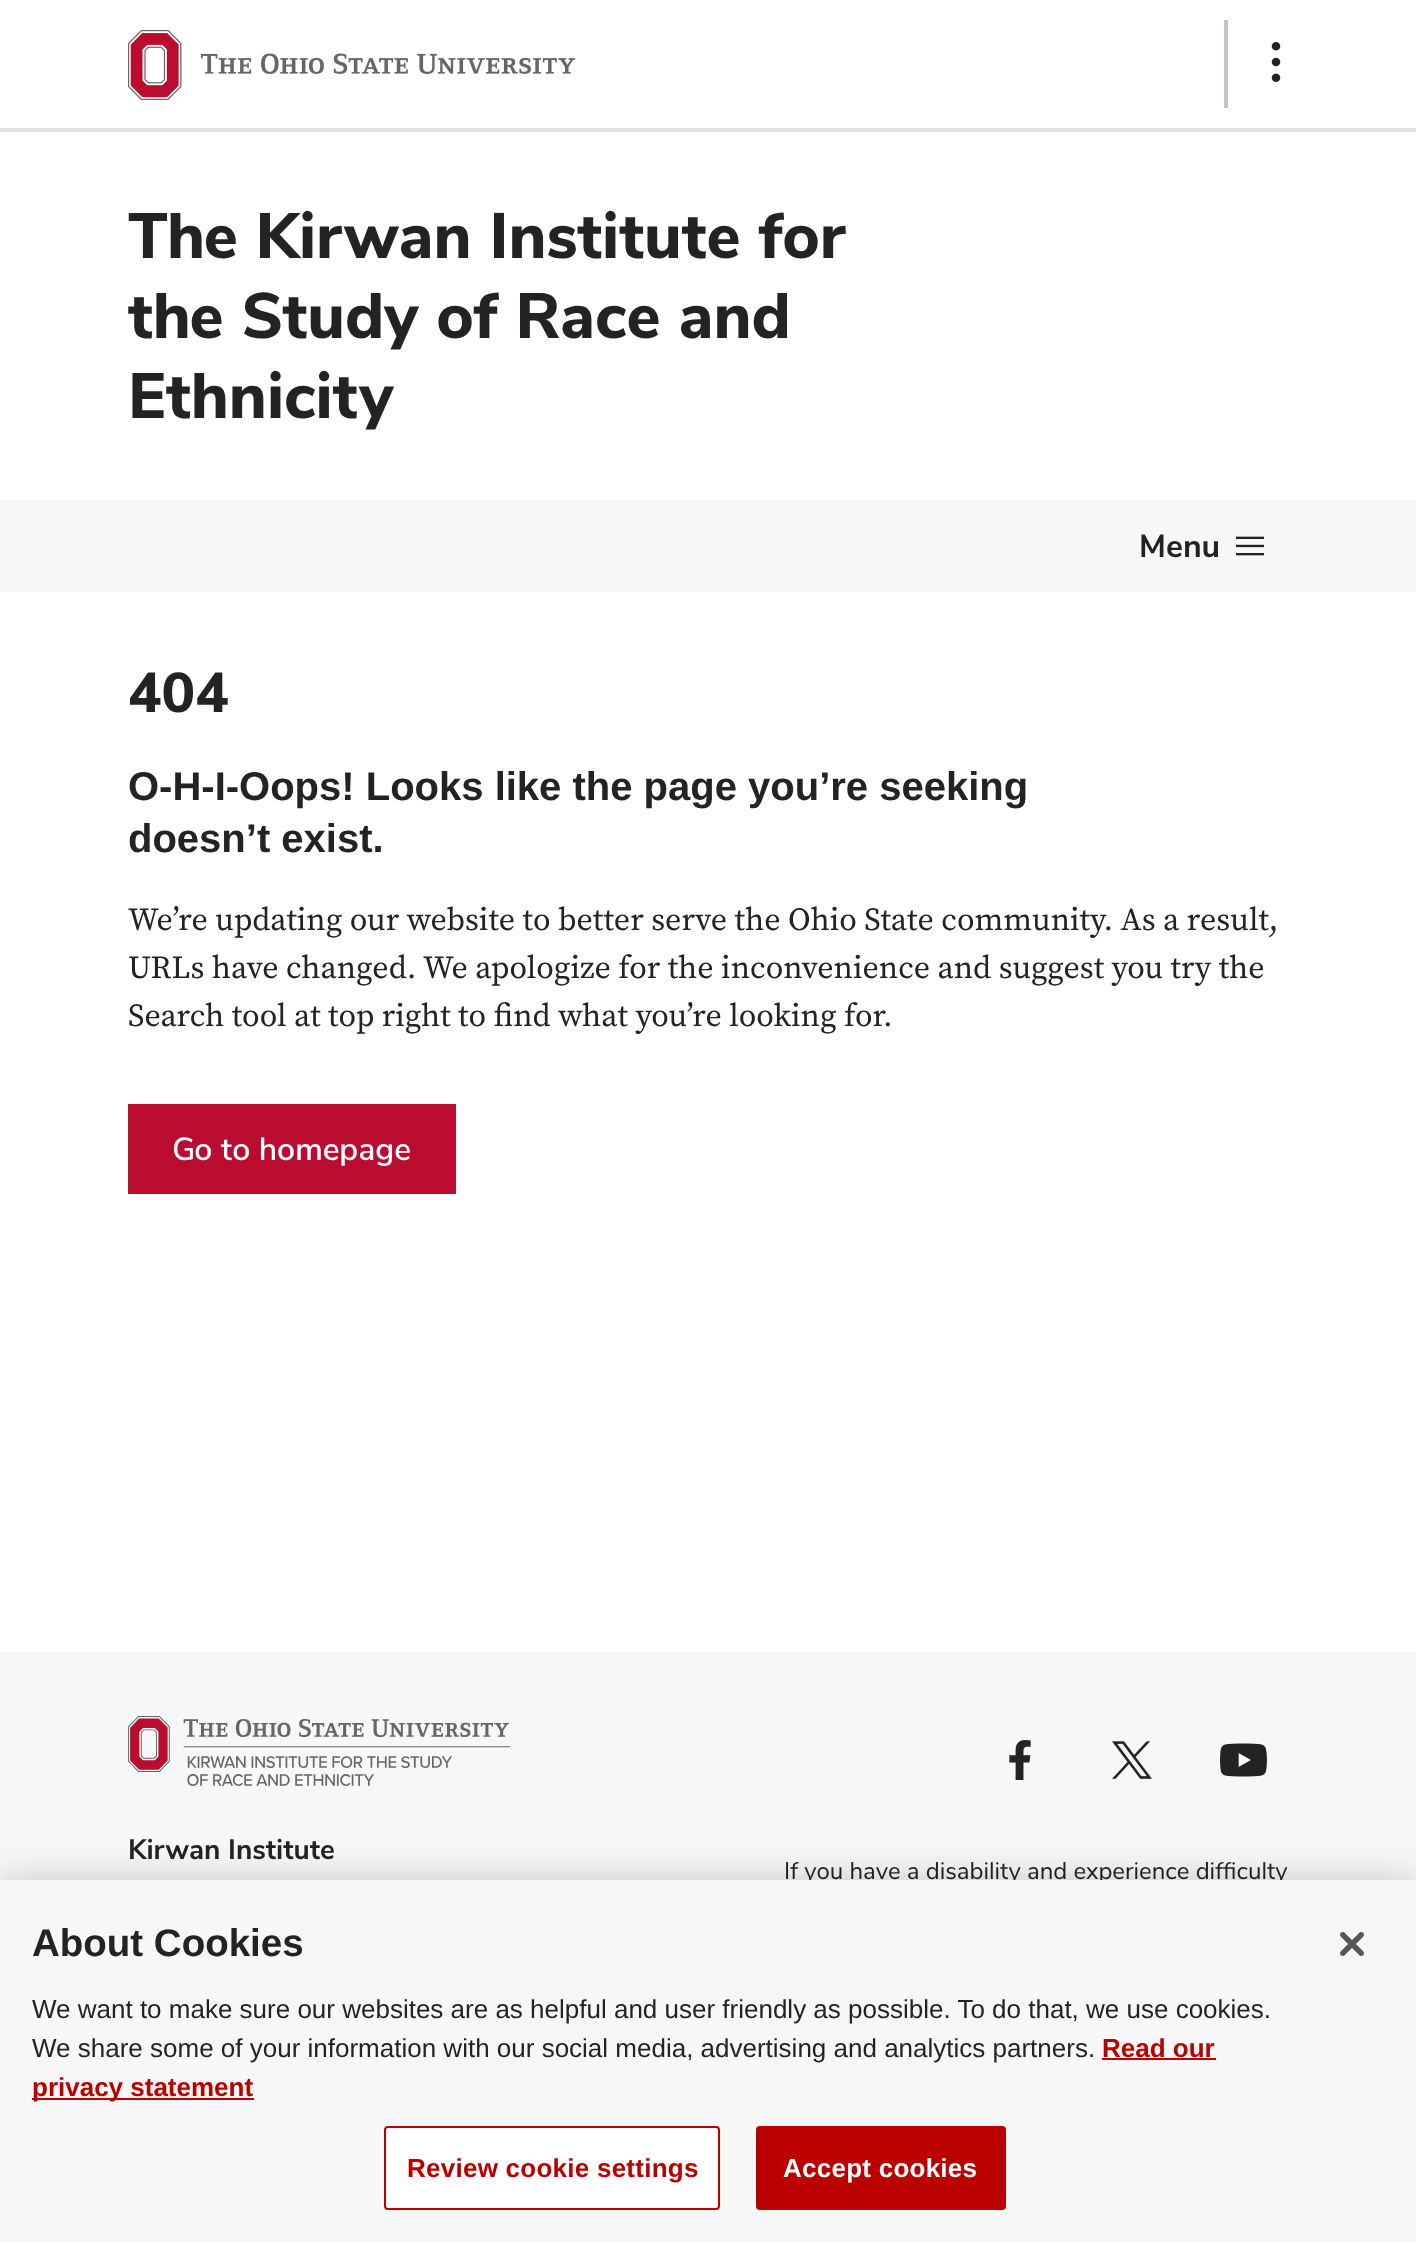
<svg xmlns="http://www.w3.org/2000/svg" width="1416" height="2242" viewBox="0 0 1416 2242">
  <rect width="100%" height="100%" fill="rgb(255,255,255)"/>
  <rect x="0" y="128" width="1416" height="4" fill="rgb(223,227,229)"/>
  <image x="128" y="30" width="448" height="70" href="pic1.png"/>
  <rect x="1224" y="20" width="4" height="88" fill="rgb(191,198,203)"/>
  <image x="1271" y="42" width="10" height="40" href="pic2.png"/>
  <g font-family="'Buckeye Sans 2'" font-size="64" font-weight="800" fill="rgb(33,35,37)">
    <text>
      <tspan x="128" y="258">The Kirwan Institute for</tspan>
      <tspan x="128" y="338">the Study of Race and</tspan>
      <tspan x="128" y="418">Ethnicity</tspan>
    </text>
  </g>
  <rect x="0" y="500" width="1416" height="92" fill="rgb(246,247,248)"/>
  <text x="1139" y="557" font-family="'Buckeye Sans 2'" font-size="32" font-weight="bold" fill="rgb(33,35,37)">Menu</text>
  <image x="1236" y="536" width="28" height="20" href="pic3.png"/>
  <text x="128" y="712" font-family="'Buckeye Sans 2'" font-size="56" font-weight="800" fill="rgb(33,35,37)">404</text>
  <g font-family="Liberation Sans" font-size="40" font-weight="bold" fill="rgb(33,35,37)">
    <text>
      <tspan x="128" y="800">O-H-I-Oops! Looks like the page you’re seeking</tspan>
      <tspan x="128" y="852">doesn’t exist.</tspan>
    </text>
  </g>
  <g font-family="'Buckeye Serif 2'" font-size="32" fill="rgb(33,35,37)">
    <text>
      <tspan x="128" y="930">We’re updating our website to better serve the Ohio State community. As a result,</tspan>
      <tspan x="128" y="978">URLs have changed. We apologize for the inconvenience and suggest you try the</tspan>
      <tspan x="128" y="1026">Search tool at top right to find what you’re looking for.</tspan>
    </text>
  </g>
  <rect x="128" y="1104" width="328" height="90" fill="rgb(186,12,47)"/>
  <text x="172" y="1160" font-family="'Buckeye Sans 2'" font-size="32" font-weight="600" fill="rgb(255,255,255)">Go to homepage</text>
  <rect x="0" y="1652" width="1416" height="228" fill="rgb(246,247,248)"/>
  <image x="128" y="1716" width="382" height="70" href="pic4.png"/>
  <text x="128" y="1859" font-family="'Buckeye Sans 2'" font-size="28" font-weight="bold" fill="rgb(33,35,37)">Kirwan Institute</text>
  <image x="1009" y="1740" width="22" height="40" href="pic5.png"/>
  <image x="1112" y="1741" width="40" height="38" href="pic6.png"/>
  <image x="1220" y="1743" width="47" height="34" href="pic7.png"/>
  <text x="784" y="1879" font-family="'Buckeye Sans 2'" font-size="24" fill="rgb(33,35,37)">If you have a disability and experience difficulty</text>
  <rect x="0" y="1880" width="1416" height="362" fill="rgba(0,0,0,0.2)" filter="blur(18px)"/>
  <rect x="0" y="1880" width="1416" height="362" fill="rgb(247,247,247)"/>
  <text x="32" y="1956" font-family="Liberation Sans" font-size="38.5" font-weight="bold" fill="rgb(33,35,37)">About Cookies</text>
  <g font-family="Liberation Sans" font-size="26" fill="rgb(33,35,37)">
    <text>
      <tspan x="32" y="2018">We want to make sure our websites are as helpful and user friendly as possible. To do that, we use cookies.</tspan>
      <tspan x="32" y="2057">We share some of your information with our social media, advertising and analytics partners.</tspan>
    </text>
  </g>
  <text x="1102" y="2057" font-family="Liberation Sans" font-size="26" font-weight="bold" fill="rgb(187,0,0)">Read our</text>
  <rect x="1102" y="2058" width="114" height="2" fill="rgb(187,0,0)"/>
  <rect x="32" y="2098" width="222" height="2" fill="rgb(187,0,0)"/>
  <text x="32" y="2096" font-family="Liberation Sans" font-size="26" font-weight="bold" fill="rgb(187,0,0)">privacy statement</text>
  <rect x="385" y="2127" width="334" height="82" rx="3" fill="rgb(255,255,255)" stroke="rgb(187,0,0)" stroke-width="2"/>
  <text x="407" y="2177" font-family="Liberation Sans" font-size="26" font-weight="bold" letter-spacing="0.25" fill="rgb(187,0,0)">Review cookie settings</text>
  <rect x="757" y="2127" width="248" height="82" rx="3" fill="rgb(187,0,0)" stroke="rgb(187,0,0)" stroke-width="2"/>
  <text x="783" y="2177" font-family="Liberation Sans" font-size="26" font-weight="bold" letter-spacing="0.25" fill="rgb(255,255,255)">Accept cookies</text>
  <image x="1340" y="1932" width="24" height="24" href="pic8.png"/>
</svg>
